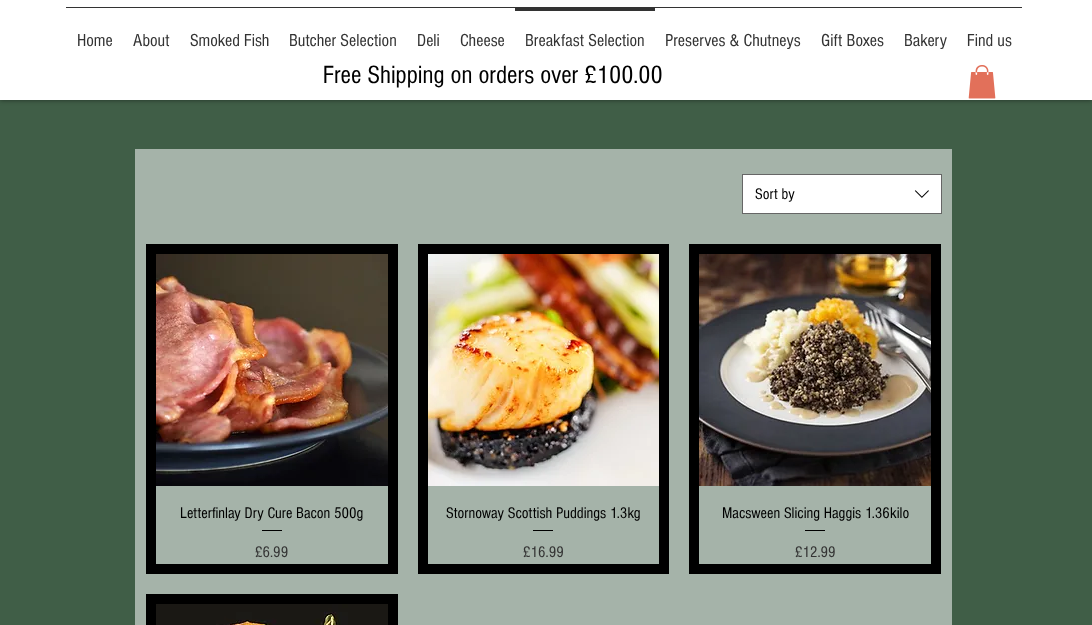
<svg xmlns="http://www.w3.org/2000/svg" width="1092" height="625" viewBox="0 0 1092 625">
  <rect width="100%" height="100%" fill="rgb(64,94,71)"/>
  <rect x="0" y="0" width="1092" height="100" fill="rgba(0,0,0,0.5)" filter="blur(2.5px)"/>
  <rect x="0" y="0" width="1092" height="100" fill="rgb(255,255,255)"/>
  <rect x="66" y="7" width="449" height="1" fill="rgb(51,51,51)"/>
  <g font-family="'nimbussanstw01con'" font-size="18" fill="rgb(51,51,51)">
    <text x="77" y="46">Home</text>
    <text x="133" y="46">About</text>
    <text x="190" y="46">Smoked Fish</text>
    <text x="289" y="46">Butcher Selection</text>
    <text x="417" y="46">Deli</text>
    <text x="460" y="46">Cheese</text>
  </g>
  <rect x="515" y="7" width="140" height="4" fill="rgb(51,51,51)"/>
  <text x="525" y="46" font-family="'nimbussanstw01con'" font-size="18" fill="rgb(51,51,51)">Breakfast Selection</text>
  <rect x="655" y="7" width="367" height="1" fill="rgb(51,51,51)"/>
  <g font-family="'nimbussanstw01con'" font-size="18" fill="rgb(51,51,51)">
    <text x="665" y="46">Preserves &amp; Chutneys</text>
    <text x="821" y="46">Gift Boxes</text>
    <text x="904" y="46">Bakery</text>
    <text x="967" y="46">Find us</text>
  </g>
  <text x="323" y="83" font-family="'nimbussanstw01con'" font-size="26" fill="rgb(0,0,0)">Free Shipping on orders over £100.00</text>
  <image x="968" y="65" width="28" height="34" href="pic1.png"/>
  <rect x="135" y="149" width="817" height="476" fill="rgb(165,179,169)"/>
  <rect x="742.5" y="174.5" width="199" height="39" fill="rgb(255,255,255)" stroke="rgb(102,102,102)"/>
  <text x="755" y="199" font-family="'nimbussanstw01con'" font-size="16" fill="rgb(0,0,0)">Sort by</text>
  <image x="914" y="190" width="15" height="8" href="pic2.png"/>
  <rect x="151" y="249" width="242" height="320" fill="none" stroke="rgb(0,0,0)" stroke-width="10"/>
  <image x="156" y="254" width="232" height="232" href="pic3.png"/>
  <text x="180" y="518" font-family="'nimbussanstw01con'" font-size="16" fill="rgb(0,0,0)">Letterfinlay Dry Cure Bacon 500g</text>
  <rect x="262" y="530" width="20" height="1" fill="rgb(0,0,0)"/>
  <text x="255" y="557" font-family="'nimbussanstw01con'" font-size="16" fill="rgb(51,51,51)">£6.99</text>
  <rect x="423" y="249" width="241" height="320" fill="none" stroke="rgb(0,0,0)" stroke-width="10"/>
  <image x="428" y="254" width="231" height="232" href="pic4.png"/>
  <text x="446" y="518" font-family="'nimbussanstw01con'" font-size="16" fill="rgb(0,0,0)">Stornoway Scottish Puddings 1.3kg</text>
  <rect x="533" y="530" width="20" height="1" fill="rgb(0,0,0)"/>
  <text x="523" y="557" font-family="'nimbussanstw01con'" font-size="16" fill="rgb(51,51,51)">£16.99</text>
  <rect x="694" y="249" width="242" height="320" fill="none" stroke="rgb(0,0,0)" stroke-width="10"/>
  <image x="699" y="254" width="232" height="232" href="pic5.png"/>
  <text x="722" y="518" font-family="'nimbussanstw01con'" font-size="16" fill="rgb(0,0,0)">Macsween Slicing Haggis 1.36kilo</text>
  <rect x="805" y="530" width="20" height="1" fill="rgb(0,0,0)"/>
  <text x="795" y="557" font-family="'nimbussanstw01con'" font-size="16" fill="rgb(51,51,51)">£12.99</text>
  <rect x="151" y="599" width="242" height="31" fill="none" stroke="rgb(0,0,0)" stroke-width="10"/>
  <image x="156" y="604" width="232" height="21" href="pic6.png"/>
</svg>
